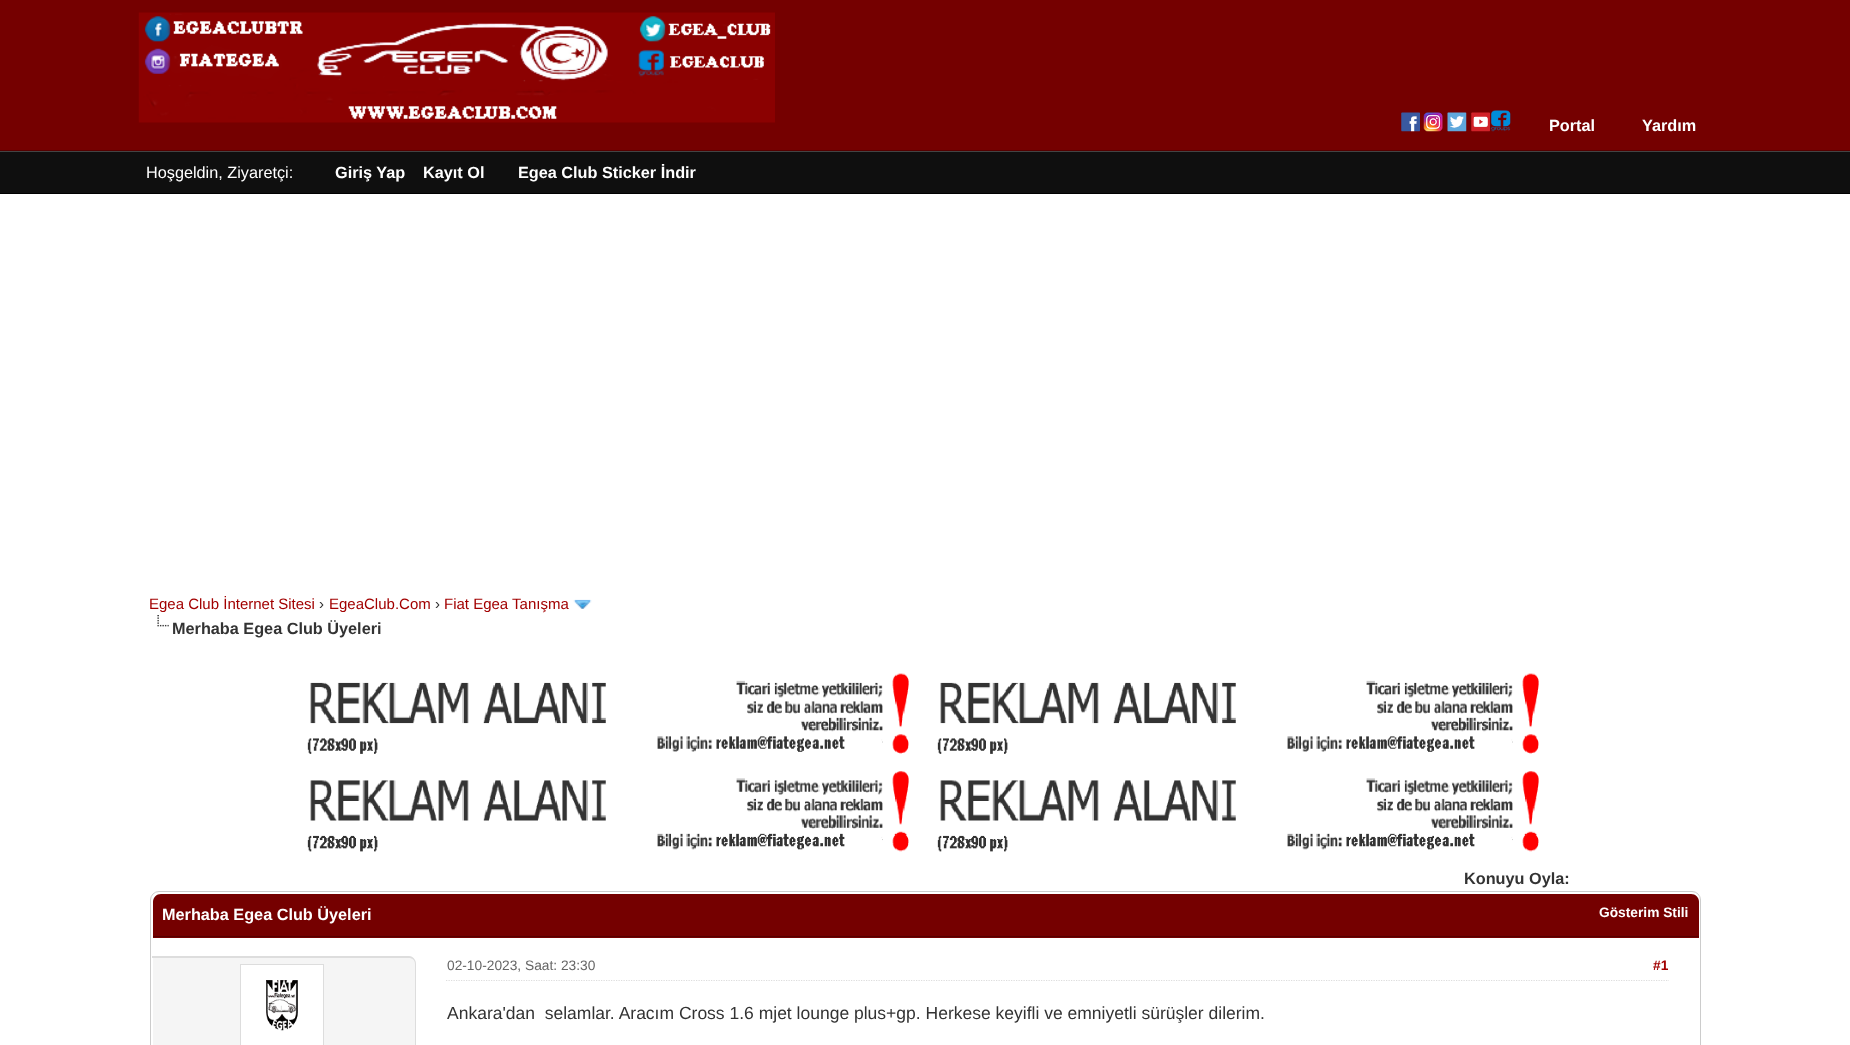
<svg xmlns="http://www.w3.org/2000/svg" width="1850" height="1045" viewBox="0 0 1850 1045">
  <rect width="100%" height="100%" fill="rgb(255,255,255)"/>
  <rect x="0" y="0" width="1850" height="150" fill="rgb(117,0,0)"/>
  <rect x="0" y="150" width="1850" height="1" fill="rgb(85,0,0)"/>
  <image x="138" y="12" width="637" height="111" href="pic1.png"/>
  <image x="1401" y="112" width="19" height="20" href="pic2.png"/>
  <image x="1423" y="112" width="20" height="20" href="pic3.png"/>
  <image x="1447" y="112" width="20" height="20" href="pic4.png"/>
  <image x="1471" y="112" width="19" height="20" href="pic5.png"/>
  <image x="1490" y="110" width="21" height="22" href="pic6.png"/>
  <g font-family="Liberation Sans" font-size="16.25" font-weight="bold" fill="rgb(255,255,255)">
    <text x="1549" y="131">Portal</text>
    <text x="1642" y="131">Yardım</text>
  </g>
  <rect x="0" y="152" width="1850" height="41" fill="rgb(15,15,15)"/>
  <rect x="0" y="151" width="1850" height="1" fill="rgb(68,68,68)"/>
  <rect x="0" y="193" width="1850" height="1" fill="rgb(0,0,0)"/>
  <text x="146" y="178" font-family="Liberation Sans" font-size="16.25" fill="rgb(255,255,255)">Hoşgeldin, Ziyaretçi:</text>
  <g font-family="Liberation Sans" font-size="16.25" font-weight="bold" fill="rgb(255,255,255)">
    <text x="335" y="178">Giriş Yap</text>
    <text x="423" y="178">Kayıt Ol</text>
    <text x="518" y="178">Egea Club Sticker İndir</text>
  </g>
  <text x="149" y="609" font-family="Liberation Sans" font-size="15" fill="rgb(162,0,0)">Egea Club İnternet Sitesi</text>
  <text x="319" y="609" font-family="Liberation Sans" font-size="15" fill="rgb(51,51,51)">›</text>
  <text x="329" y="609" font-family="Liberation Sans" font-size="15" fill="rgb(162,0,0)">EgeaClub.Com</text>
  <text x="435" y="609" font-family="Liberation Sans" font-size="15" fill="rgb(51,51,51)">›</text>
  <text x="444" y="609" font-family="Liberation Sans" font-size="15" fill="rgb(162,0,0)">Fiat Egea Tanışma</text>
  <image x="573" y="599" width="19" height="10" href="pic7.png"/>
  <image x="157" y="615" width="12" height="12" href="pic8.png"/>
  <text x="172" y="634" font-family="Liberation Sans" font-size="16.25" font-weight="bold" fill="rgb(51,51,51)">Merhaba Egea Club Üyeleri</text>
  <image x="307" y="673" width="602" height="81" href="pic9.png"/>
  <image x="937" y="673" width="602" height="81" href="pic9.png"/>
  <image x="307" y="771" width="602" height="81" href="pic10.png"/>
  <image x="937" y="771" width="602" height="81" href="pic10.png"/>
  <text x="1464" y="884" font-family="Liberation Sans" font-size="16.25" font-weight="bold" fill="rgb(51,51,51)">Konuyu Oyla:</text>
  <rect x="150.5" y="891.5" width="1550" height="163" rx="8.5" fill="none" stroke="rgb(204,204,204)"/>
  <path d="M161 894H1691C1695.5 894 1699 897.5 1699 902V938H153V902C153 897.5 156.5 894 161 894Z" fill="rgb(117,0,0)"/>
  <rect x="153" y="936" width="1546" height="1" fill="rgb(85,0,0)"/>
  <text x="162" y="920" font-family="Liberation Sans" font-size="16.25" font-weight="bold" fill="rgb(255,255,255)">Merhaba Egea Club Üyeleri</text>
  <text x="1599" y="917" font-family="Liberation Sans" font-size="13.75" font-weight="bold" fill="rgb(255,255,255)">Gösterim Stili</text>
  <path d="M153 956H408C412.5 956 416 959.5 416 964V1045C416 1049.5 412.5 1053 408 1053H153Z" fill="rgb(245,245,245)"/>
  <path d="M152 956H409C413 956 416 960 416 964V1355C416 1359 413 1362 409 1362H152ZM152 958H409C412 958 415 960 415 964V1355C415 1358 412 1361 409 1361H152Z" fill="rgb(221,221,221)" fill-rule="evenodd"/>
  <rect x="240.5" y="964.5" width="83" height="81" fill="rgb(255,255,255)" stroke="rgb(221,221,221)"/>
  <image x="266" y="980" width="32" height="51" href="pic11.png"/>
  <path d="M446 980.5H1669" fill="none" stroke="rgb(221,221,221)" stroke-width="1.2" stroke-dasharray="1.25 1.25"/>
  <text x="447" y="970" font-family="Liberation Sans" font-size="13.75" fill="rgb(102,102,102)">02-10-2023, Saat: 23:30</text>
  <text x="1653" y="970" font-family="Liberation Sans" font-size="13.75" font-weight="bold" fill="rgb(162,0,0)">#1</text>
  <text x="447" y="1019" font-family="Liberation Sans" font-size="17.5" fill="rgb(51,51,51)" xml:space="preserve">Ankara'dan  selamlar. Aracım Cross 1.6 mjet lounge plus+gp. Herkese keyifli ve emniyetli sürüşler dilerim.</text>
</svg>
